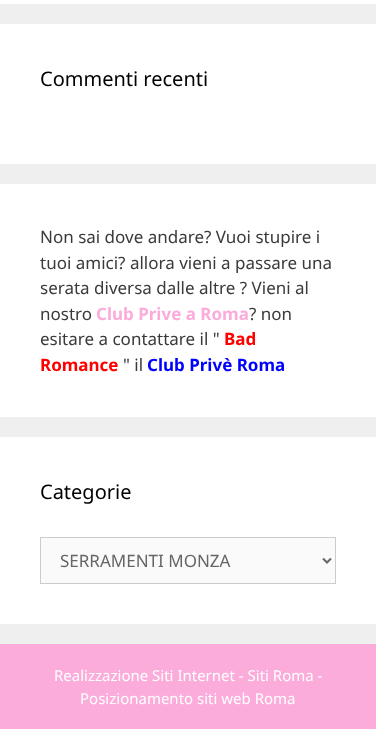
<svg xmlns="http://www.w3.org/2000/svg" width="376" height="729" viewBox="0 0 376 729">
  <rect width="100%" height="100%" fill="rgb(239,239,239)"/>
  <rect x="0" y="0" width="376" height="4" fill="rgb(255,255,255)"/>
  <rect x="0" y="24" width="376" height="140" fill="rgb(255,255,255)"/>
  <text x="40" y="86" font-family="Noto Sans" font-size="20" fill="rgb(0,0,0)">Commenti recenti</text>
  <rect x="0" y="184" width="376" height="233" fill="rgb(255,255,255)"/>
  <g font-family="Noto Sans" font-size="17" fill="rgb(58,58,58)">
    <text>
      <tspan x="40" y="243">Non sai dove andare? Vuoi stupire i</tspan>
      <tspan x="40" y="269">tuoi amici? allora vieni a passare una</tspan>
      <tspan x="40" y="294">serata diversa dalle altre ? Vieni al</tspan>
      <tspan x="40" y="320">nostro</tspan>
    </text>
  </g>
  <text x="96" y="320" font-family="Noto Sans" font-size="17" font-weight="bold" fill="rgb(251,172,219)">Club Prive a Roma</text>
  <g font-family="Noto Sans" font-size="17" fill="rgb(58,58,58)">
    <text x="249" y="320">? non</text>
    <text x="40" y="345">esitare a contattare il "</text>
  </g>
  <g font-family="Noto Sans" font-size="17" font-weight="bold" fill="rgb(255,0,0)">
    <text x="224" y="345">Bad</text>
    <text x="40" y="371">Romance</text>
  </g>
  <text x="123" y="371" font-family="Noto Sans" font-size="17" fill="rgb(58,58,58)">" il</text>
  <text x="147" y="371" font-family="Noto Sans" font-size="17" font-weight="bold" fill="rgb(0,0,255)">Club Privè Roma</text>
  <rect x="0" y="437" width="376" height="187" fill="rgb(255,255,255)"/>
  <text x="40" y="499" font-family="Noto Sans" font-size="20" fill="rgb(0,0,0)">Categorie</text>
  <rect x="40.5" y="537.5" width="295" height="46" fill="rgb(250,250,250)" stroke="rgb(204,204,204)"/>
  <path d="M323 558.5L327 562.5L331 558.5" fill="none" stroke="rgb(102,102,102)" stroke-width="2"/>
  <text x="60" y="567" font-family="Noto Sans" font-size="17" fill="rgb(102,102,102)">SERRAMENTI MONZA</text>
  <rect x="0" y="644" width="376" height="85" fill="rgb(251,172,219)"/>
  <g font-family="Noto Sans" font-size="15" fill="rgb(255,255,255)">
    <text x="54" y="681">Realizzazione Siti Internet - Siti Roma -</text>
    <text x="80" y="704">Posizionamento siti web Roma</text>
  </g>
</svg>
